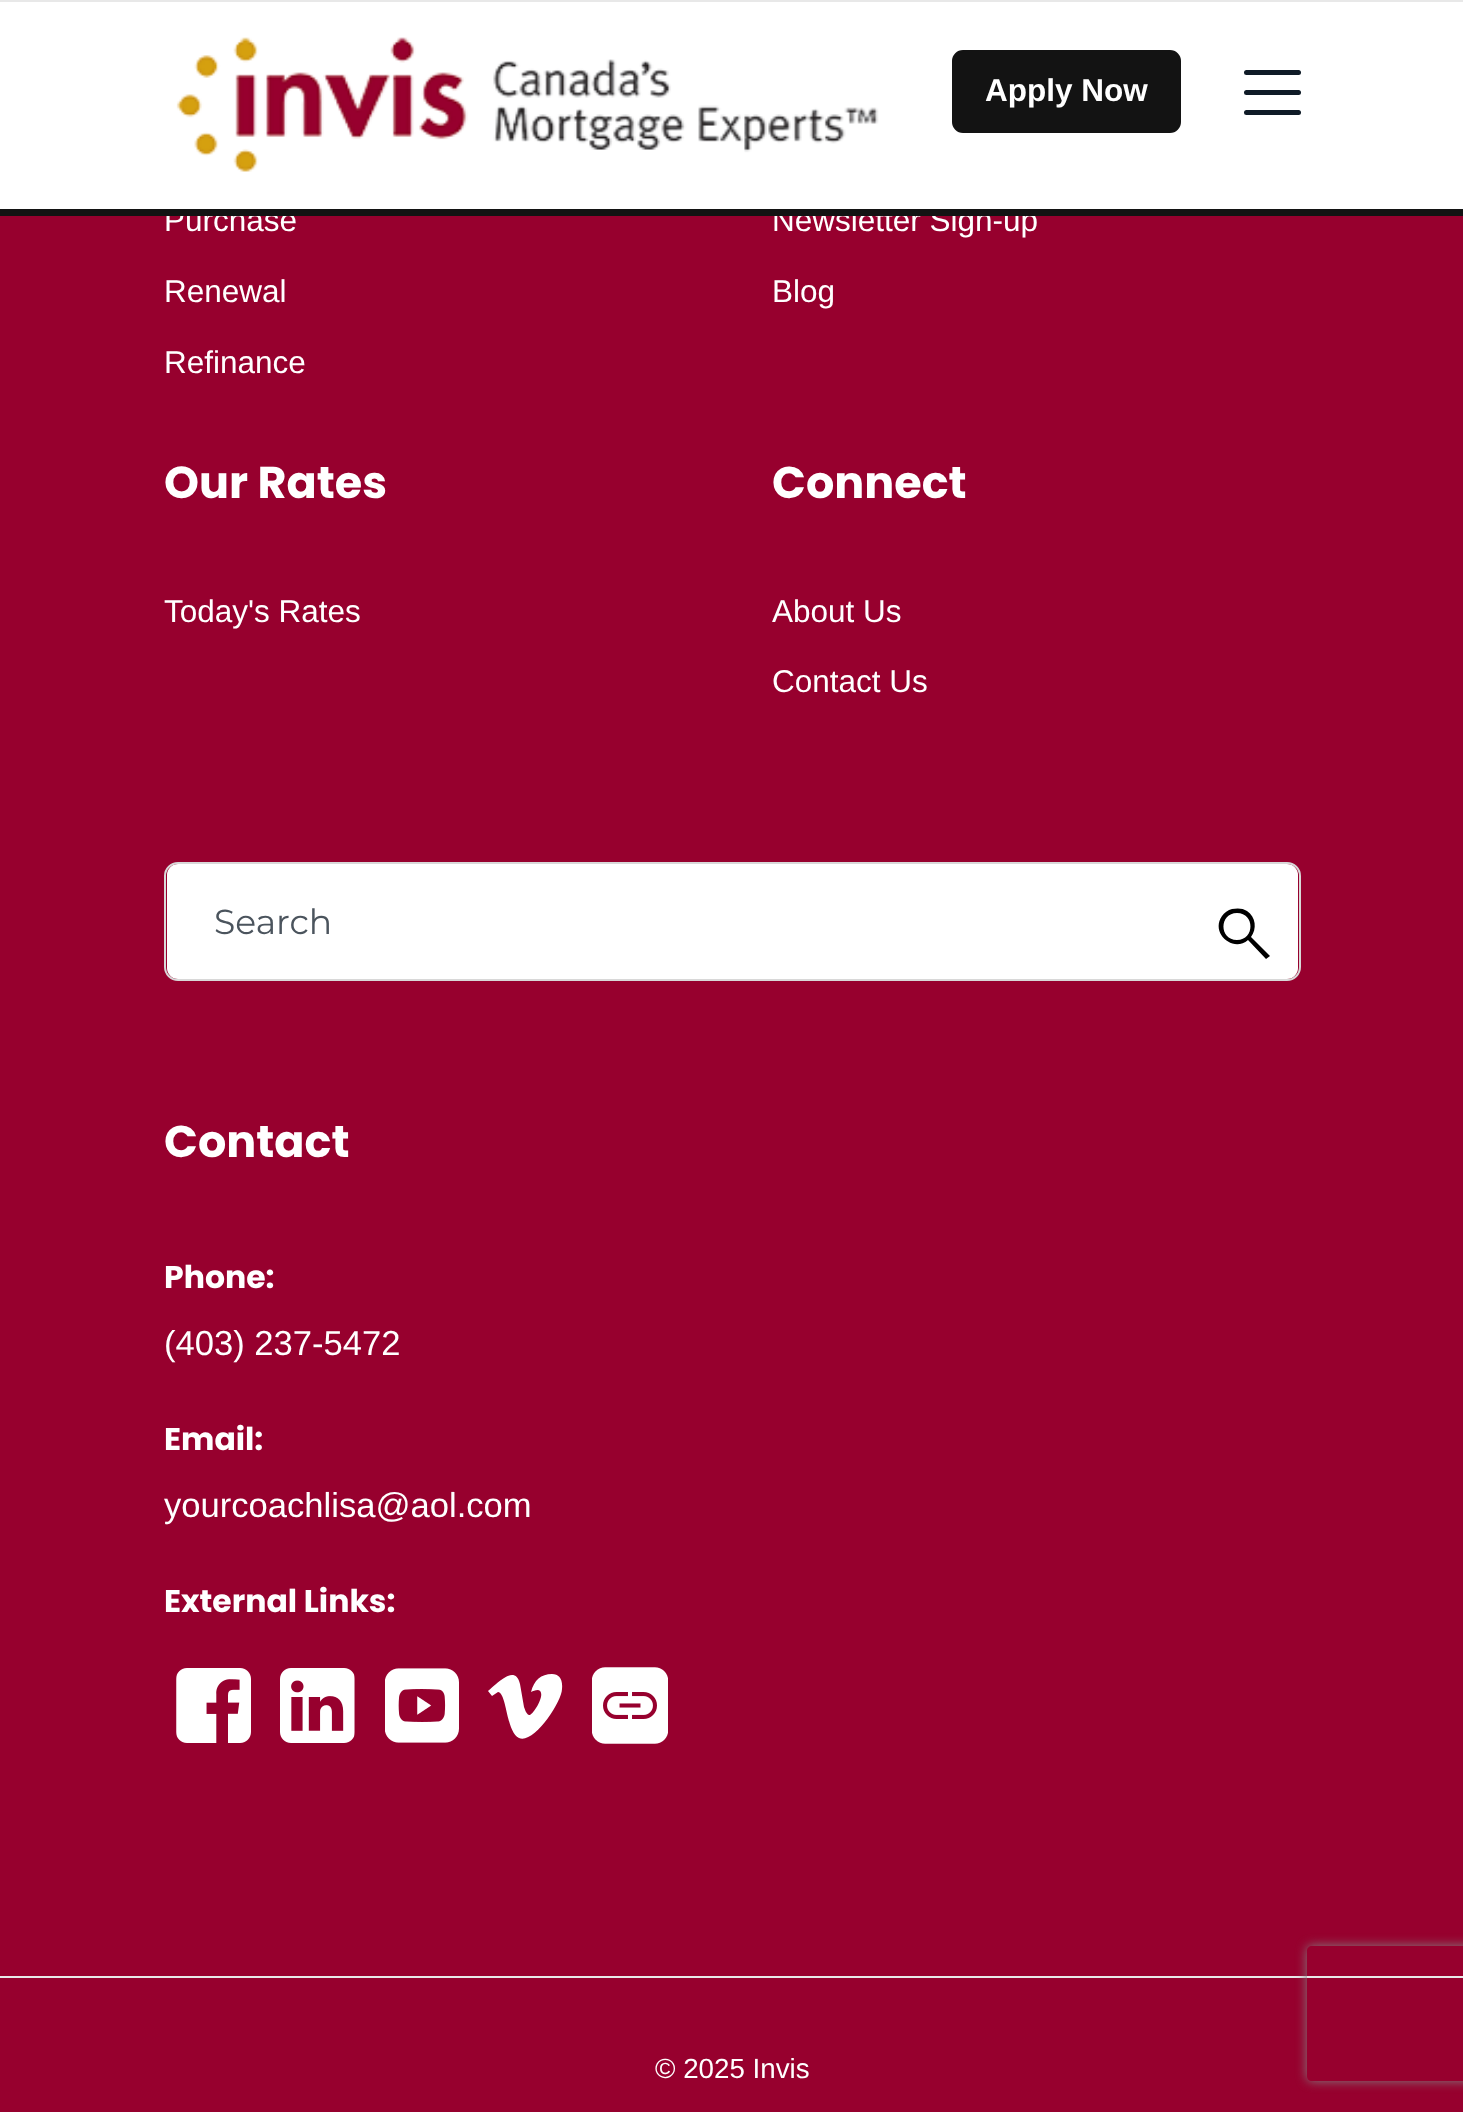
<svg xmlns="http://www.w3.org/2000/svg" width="1463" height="2112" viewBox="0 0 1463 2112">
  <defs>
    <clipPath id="clip1"><path d="M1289 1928H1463V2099H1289ZM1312 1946H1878C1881 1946 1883 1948 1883 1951V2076C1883 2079 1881 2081 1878 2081H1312C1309 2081 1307 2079 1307 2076V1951C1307 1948 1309 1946 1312 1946Z" clip-rule="evenodd"/></clipPath>
  </defs>
  <rect width="100%" height="100%" fill="rgb(151,0,46)"/>
  <rect x="0" y="2" width="1463" height="207" fill="rgb(255,255,255)"/>
  <g font-family="Liberation Sans" font-size="31.5" fill="rgb(255,255,255)">
    <text x="164" y="231">Purchase</text>
    <text x="772" y="231">Newsletter Sign-up</text>
  </g>
  <rect x="0" y="209" width="1463" height="7" fill="rgb(19,19,19)"/>
  <rect x="0" y="0" width="1463" height="2" fill="rgb(232,232,232)"/>
  <image x="176" y="37" width="703" height="135" href="pic1.png"/>
  <rect x="953" y="51" width="227" height="81" rx="10" fill="rgb(19,19,19)" stroke="rgb(19,19,19)" stroke-width="2"/>
  <text x="985" y="101" font-family="Liberation Sans" font-size="31.5" font-weight="bold" fill="rgb(255,255,255)">Apply Now</text>
  <rect x="1244" y="70" width="57" height="5" rx="2.5" fill="rgb(15,27,39)"/>
  <rect x="1244" y="90" width="57" height="5" rx="2.5" fill="rgb(15,27,39)"/>
  <rect x="1244" y="110" width="57" height="5" rx="2.5" fill="rgb(15,27,39)"/>
  <g font-family="Liberation Sans" font-size="31.5" fill="rgb(255,255,255)">
    <text x="164" y="302">Renewal</text>
    <text x="164" y="373">Refinance</text>
    <text x="772" y="302">Blog</text>
  </g>
  <text x="164" y="498" font-family="Poppins" font-size="44.5" font-weight="bold" fill="rgb(255,255,255)">Our Rates</text>
  <text x="164" y="622" font-family="Liberation Sans" font-size="31.5" fill="rgb(255,255,255)">Today's Rates</text>
  <text x="772" y="498" font-family="Poppins" font-size="44.5" font-weight="bold" fill="rgb(255,255,255)">Connect</text>
  <g font-family="Liberation Sans" font-size="31.5" fill="rgb(255,255,255)">
    <text x="772" y="622">About Us</text>
    <text x="772" y="692">Contact Us</text>
  </g>
  <rect x="167" y="864" width="1131" height="115" rx="11" fill="rgb(255,255,255)"/>
  <rect x="165" y="863" width="1135" height="117" rx="13" fill="none" stroke="rgb(216,216,216)" stroke-width="2"/>
  <text x="214" y="934" font-family="Montserrat" font-size="34.6" fill="rgb(75,84,93)">Search</text>
  <path d="M1266 959L1248 940C1233 953 1210 933 1222 916C1224 913 1228 910 1232 909C1237 908 1243 908 1247 911C1256 917 1257 929 1251 937L1270 956ZM1237 940C1255 940 1255 913 1237 913C1219 913 1219 940 1237 940Z" fill="rgb(0,0,0)"/>
  <text x="164" y="1157" font-family="Poppins" font-size="44.5" font-weight="bold" fill="rgb(255,255,255)">Contact</text>
  <text x="164" y="1288" font-family="Poppins" font-size="31.5" font-weight="bold" fill="rgb(255,255,255)">Phone:</text>
  <text x="164" y="1355" font-family="Liberation Sans" font-size="34.6" fill="rgb(255,255,255)">(403) 237-5472</text>
  <text x="164" y="1450" font-family="Poppins" font-size="31.5" font-weight="bold" fill="rgb(255,255,255)">Email:</text>
  <text x="164" y="1517" font-family="Liberation Sans" font-size="34.6" fill="rgb(255,255,255)">yourcoachlisa@aol.com</text>
  <text x="164" y="1612" font-family="Poppins" font-size="31.5" font-weight="bold" fill="rgb(255,255,255)">External Links:</text>
  <image x="176" y="1668" width="75" height="75" href="pic2.png"/>
  <image x="280" y="1668" width="75" height="75" href="pic3.png"/>
  <image x="385" y="1668" width="74" height="75" href="pic4.png"/>
  <path d="M562 1689C562 1702 533 1745 519 1738C506 1732 507 1693 498 1692L492 1696L488 1691C496 1685 515 1663 520 1684L524 1707C525 1709 526 1714 529 1715C532 1717 548 1692 538 1690C535 1690 533 1691 531 1692C534 1680 541 1674 552 1674C559 1674 563 1679 562 1689Z" fill="rgb(255,255,255)"/>
  <image x="592" y="1667" width="76" height="77" href="pic5.png"/>
  <rect x="0" y="1976" width="1463" height="2" fill="rgb(232,232,232)"/>
  <text x="655" y="2078" font-family="Liberation Sans" font-size="27.75" fill="rgb(255,255,255)">© 2025 Invis</text>
  <g clip-path="url(#clip1)">
    <rect x="1307" y="1946" width="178" height="135" rx="5" fill="rgb(128,128,128)" filter="blur(5.5px)"/>
  </g>
</svg>
